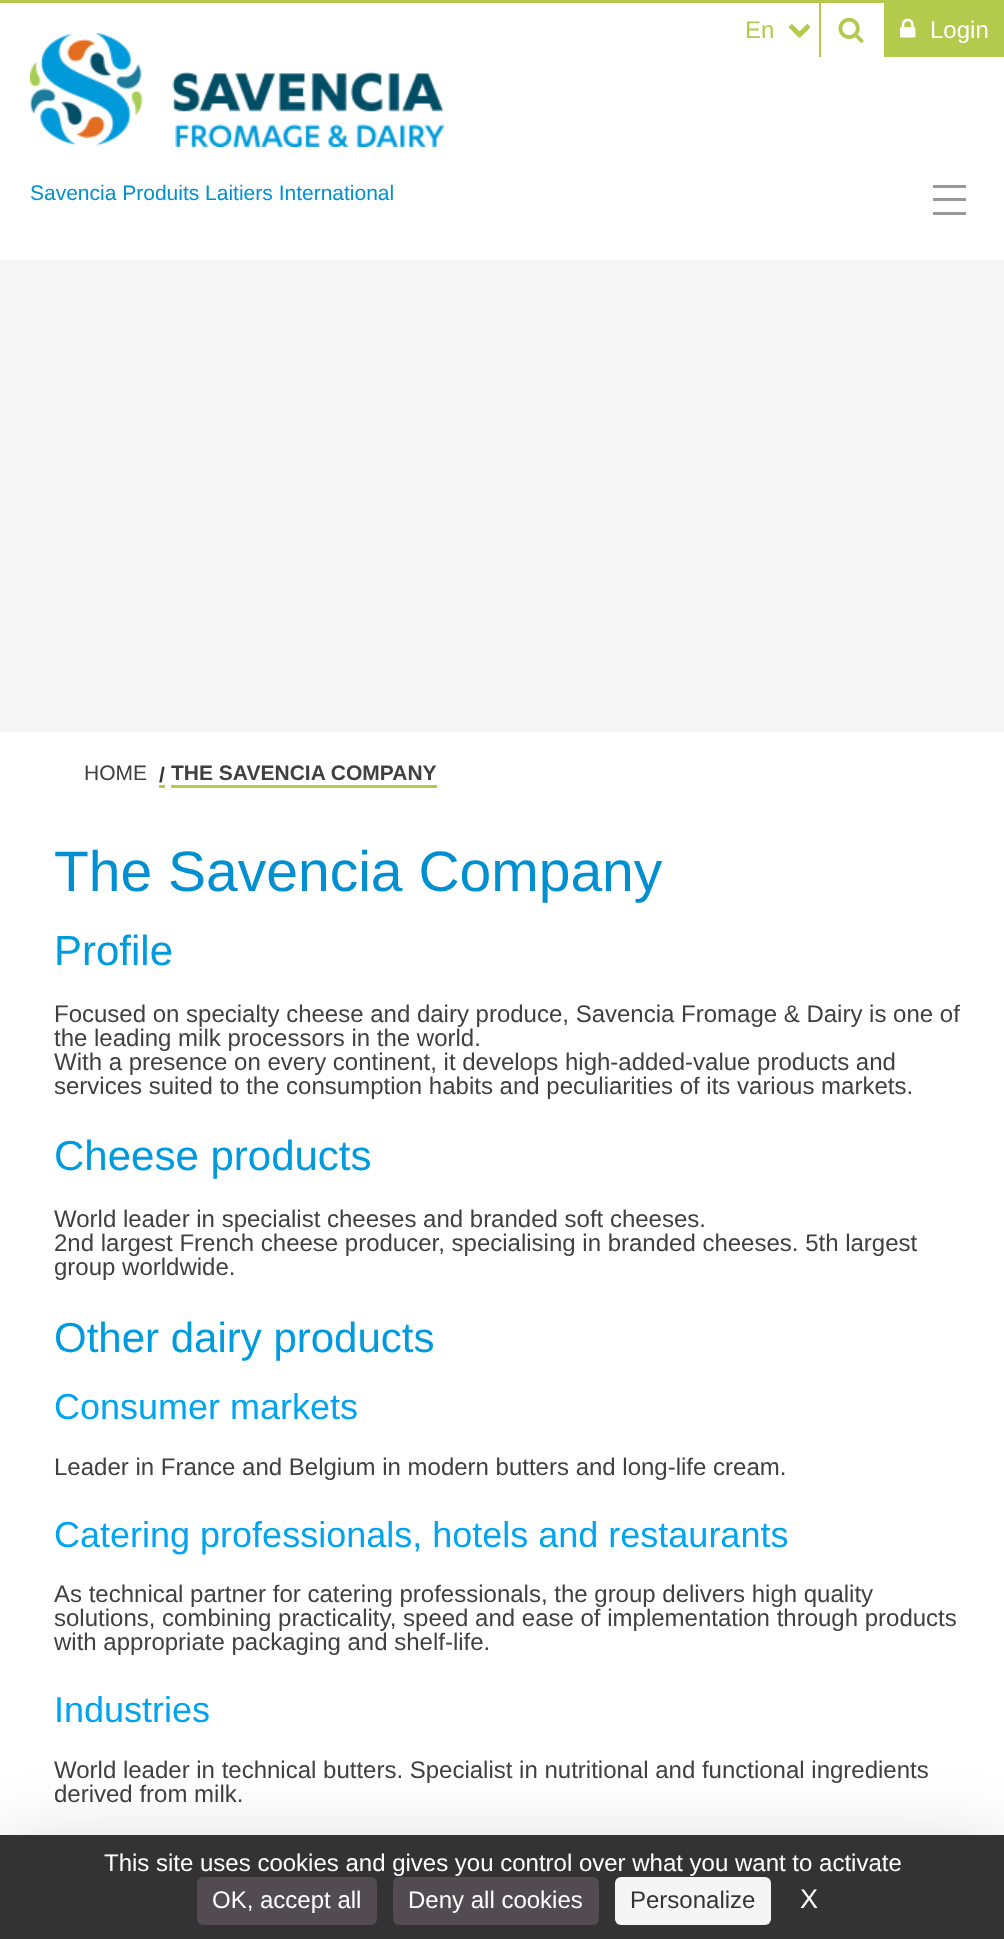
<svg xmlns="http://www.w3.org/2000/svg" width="1004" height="1939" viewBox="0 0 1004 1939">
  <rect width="100%" height="100%" fill="rgb(255,255,255)"/>
  <rect x="0" y="0" width="1004" height="3" fill="rgb(180,202,77)"/>
  <rect x="819" y="3" width="2" height="54" fill="rgb(180,202,77)"/>
  <text x="745" y="38" font-family="Liberation Sans" font-size="24" fill="rgb(180,202,77)">En</text>
  <image x="788" y="24" width="23" height="14" href="pic1.png"/>
  <image x="838" y="17" width="26" height="26" href="pic2.png"/>
  <rect x="884" y="3" width="120" height="54" fill="rgb(180,202,77)"/>
  <image x="900" y="18" width="16" height="20" href="pic3.png"/>
  <text x="930" y="38" font-family="Liberation Sans" font-size="24" fill="rgb(255,255,255)">Login</text>
  <rect x="933" y="185" width="33" height="3" fill="rgb(151,152,154)"/>
  <rect x="933" y="198" width="33" height="3" fill="rgb(151,152,154)"/>
  <rect x="933" y="212" width="33" height="3" fill="rgb(151,152,154)"/>
  <image x="30" y="33" width="414" height="114" href="pic4.png"/>
  <text x="30" y="200" font-family="Liberation Sans" font-size="21" fill="rgb(0,143,208)">Savencia Produits Laitiers International</text>
  <rect x="0" y="260" width="1004" height="472" fill="rgb(246,246,246)"/>
  <text x="84" y="780" font-family="Liberation Sans" font-size="21" fill="rgb(64,64,64)">HOME</text>
  <rect x="159" y="785" width="6" height="3" fill="rgb(180,202,77)"/>
  <rect x="171" y="785" width="266" height="3" fill="rgb(180,202,77)"/>
  <text x="159" y="782" font-family="Liberation Sans" font-size="21" font-weight="bold" fill="rgb(51,51,51)">/</text>
  <text x="171" y="780" font-family="Liberation Sans" font-size="21" font-weight="bold" fill="rgb(64,64,64)">THE SAVENCIA COMPANY</text>
  <text x="54" y="891" font-family="Liberation Sans" font-size="57" fill="rgb(0,143,208)">The Savencia Company</text>
  <text x="54" y="965" font-family="Liberation Sans" font-size="42" fill="rgb(0,154,223)">Profile</text>
  <g font-family="Liberation Sans" font-size="24" fill="rgb(64,64,64)">
    <text>
      <tspan x="54" y="1022">Focused on specialty cheese and dairy produce, Savencia Fromage &amp; Dairy is one of</tspan>
      <tspan x="54" y="1046">the leading milk processors in the world.</tspan>
      <tspan x="54" y="1070">With a presence on every continent, it develops high-added-value products and</tspan>
      <tspan x="54" y="1094">services suited to the consumption habits and peculiarities of its various markets.</tspan>
    </text>
  </g>
  <text x="54" y="1170" font-family="Liberation Sans" font-size="42" fill="rgb(0,154,223)">Cheese products</text>
  <g font-family="Liberation Sans" font-size="24" fill="rgb(64,64,64)">
    <text>
      <tspan x="54" y="1227">World leader in specialist cheeses and branded soft cheeses.</tspan>
      <tspan x="54" y="1251">2nd largest French cheese producer, specialising in branded cheeses. 5th largest</tspan>
      <tspan x="54" y="1275">group worldwide.</tspan>
    </text>
  </g>
  <text x="54" y="1352" font-family="Liberation Sans" font-size="42" fill="rgb(0,154,223)">Other dairy products</text>
  <text x="54" y="1419" font-family="Liberation Sans" font-size="36" fill="rgb(0,164,239)">Consumer markets</text>
  <text x="54" y="1475" font-family="Liberation Sans" font-size="24" fill="rgb(64,64,64)">Leader in France and Belgium in modern butters and long-life cream.</text>
  <text x="54" y="1547" font-family="Liberation Sans" font-size="36" fill="rgb(0,164,239)">Catering professionals, hotels and restaurants</text>
  <g font-family="Liberation Sans" font-size="24" fill="rgb(64,64,64)">
    <text>
      <tspan x="54" y="1602">As technical partner for catering professionals, the group delivers high quality</tspan>
      <tspan x="54" y="1626">solutions, combining practicality, speed and ease of implementation through products</tspan>
      <tspan x="54" y="1650">with appropriate packaging and shelf-life.</tspan>
    </text>
  </g>
  <text x="54" y="1722" font-family="Liberation Sans" font-size="36" fill="rgb(0,164,239)">Industries</text>
  <g font-family="Liberation Sans" font-size="24" fill="rgb(64,64,64)">
    <text>
      <tspan x="54" y="1778">World leader in technical butters. Specialist in nutritional and functional ingredients</tspan>
      <tspan x="54" y="1802">derived from milk.</tspan>
    </text>
  </g>
  <rect x="0" y="1865" width="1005" height="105" fill="rgba(0,0,0,0.25)" filter="blur(45px)"/>
  <rect x="0" y="1835" width="1004" height="104" fill="rgb(51,51,51)"/>
  <text x="104" y="1871" font-family="Liberation Sans" font-size="24" fill="rgb(255,255,255)">This site uses cookies and gives you control over what you want to activate</text>
  <rect x="197" y="1877" width="180" height="48" rx="6" fill="rgb(82,75,82)"/>
  <text x="212" y="1908" font-family="Liberation Sans" font-size="24" fill="rgb(255,255,255)">OK, accept all</text>
  <rect x="393" y="1877" width="206" height="48" rx="6" fill="rgb(82,75,82)"/>
  <text x="408" y="1908" font-family="Liberation Sans" font-size="24" fill="rgb(255,255,255)">Deny all cookies</text>
  <rect x="615" y="1877" width="156" height="48" rx="6" fill="rgb(245,245,245)"/>
  <text x="630" y="1908" font-family="Liberation Sans" font-size="24" fill="rgb(51,51,51)">Personalize</text>
  <text x="800" y="1908" font-family="Liberation Sans" font-size="27" fill="rgb(255,255,255)">X</text>
</svg>
